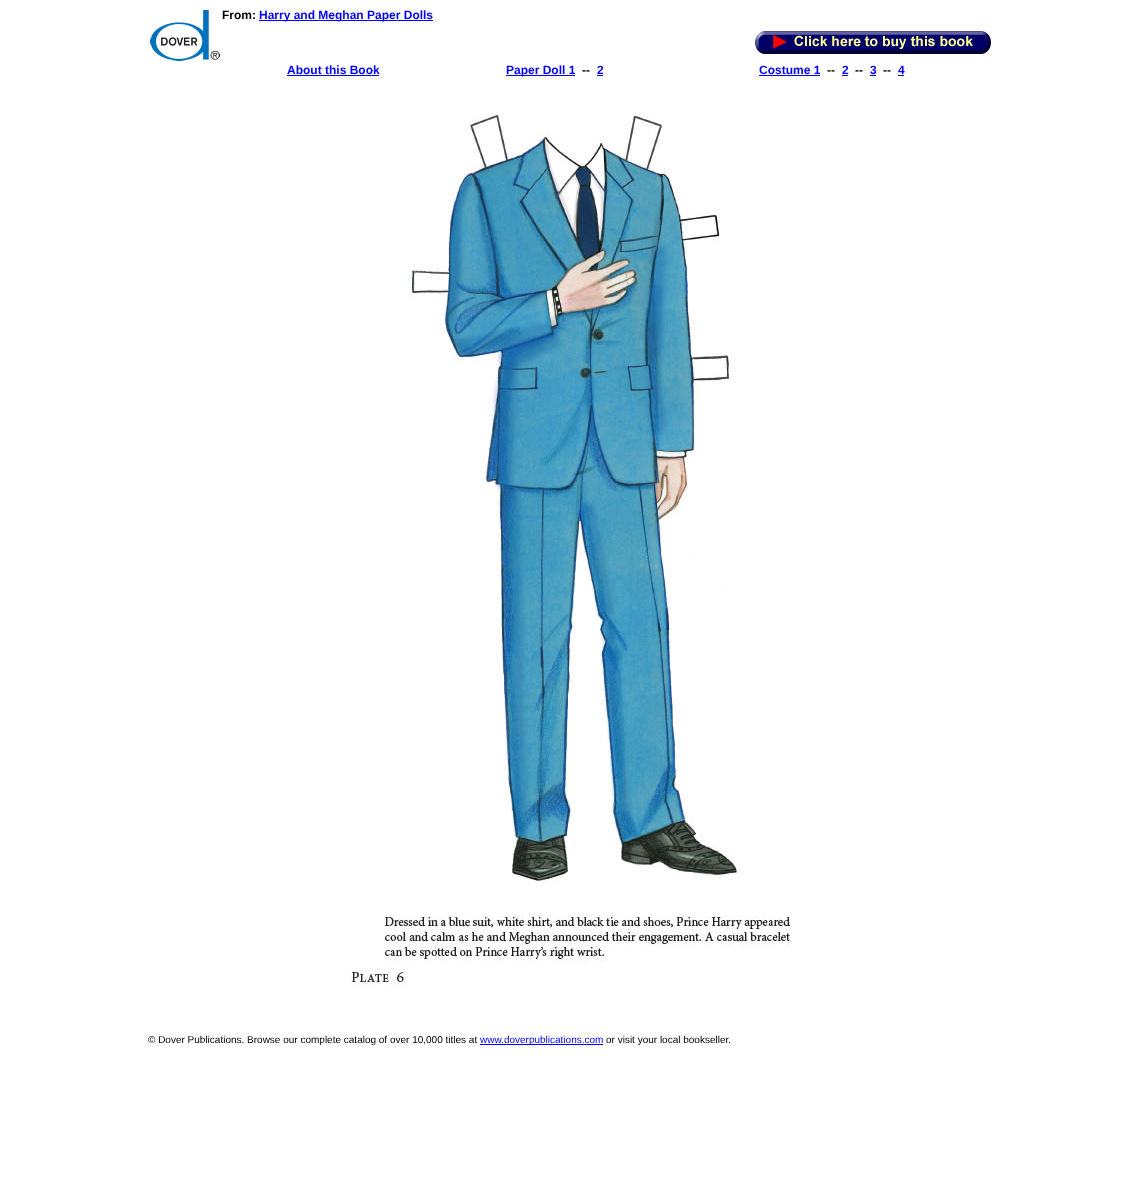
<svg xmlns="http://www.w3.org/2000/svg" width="1146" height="1201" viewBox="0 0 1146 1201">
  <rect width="100%" height="100%" fill="rgb(255,255,255)"/>
  <image x="150" y="10" width="70" height="51" href="pic1.png"/>
  <text x="222" y="19" font-family="Liberation Sans" font-size="12" font-weight="bold" fill="rgb(0,0,0)">From:</text>
  <rect x="259" y="20" width="174" height="1" fill="rgb(0,0,255)"/>
  <text x="259" y="19" font-family="Liberation Sans" font-size="12" font-weight="bold" fill="rgb(0,0,255)">Harry and Meghan Paper Dolls</text>
  <image x="755" y="31" width="236" height="23" href="pic2.png"/>
  <text x="287" y="74" font-family="Liberation Sans" font-size="12" font-weight="bold" fill="rgb(0,0,255)">About this Book</text>
  <rect x="287" y="75" width="92" height="1" fill="rgb(0,0,255)"/>
  <rect x="506" y="75" width="69" height="1" fill="rgb(0,0,255)"/>
  <text x="506" y="74" font-family="Liberation Sans" font-size="12" font-weight="bold" fill="rgb(0,0,255)">Paper Doll 1</text>
  <text x="582" y="74" font-family="Liberation Sans" font-size="12" font-weight="bold" fill="rgb(0,0,0)">--</text>
  <text x="597" y="74" font-family="Liberation Sans" font-size="12" font-weight="bold" fill="rgb(0,0,255)">2</text>
  <rect x="597" y="75" width="6" height="1" fill="rgb(0,0,255)"/>
  <text x="759" y="74" font-family="Liberation Sans" font-size="12" font-weight="bold" fill="rgb(0,0,255)">Costume 1</text>
  <rect x="759" y="75" width="61" height="1" fill="rgb(0,0,255)"/>
  <text x="827" y="74" font-family="Liberation Sans" font-size="12" font-weight="bold" fill="rgb(0,0,0)">--</text>
  <text x="842" y="74" font-family="Liberation Sans" font-size="12" font-weight="bold" fill="rgb(0,0,255)">2</text>
  <rect x="842" y="75" width="6" height="1" fill="rgb(0,0,255)"/>
  <text x="855" y="74" font-family="Liberation Sans" font-size="12" font-weight="bold" fill="rgb(0,0,0)">--</text>
  <text x="870" y="74" font-family="Liberation Sans" font-size="12" font-weight="bold" fill="rgb(0,0,255)">3</text>
  <rect x="870" y="75" width="6" height="1" fill="rgb(0,0,255)"/>
  <text x="883" y="74" font-family="Liberation Sans" font-size="12" font-weight="bold" fill="rgb(0,0,0)">--</text>
  <text x="898" y="74" font-family="Liberation Sans" font-size="12" font-weight="bold" fill="rgb(0,0,255)">4</text>
  <rect x="898" y="75" width="6" height="1" fill="rgb(0,0,255)"/>
  <image x="350" y="115" width="442" height="872" href="pic3.png"/>
  <text x="148" y="1043" font-family="Liberation Sans" font-size="10" fill="rgb(0,0,0)">© Dover Publications. Browse our complete catalog of over 10,000 titles at</text>
  <rect x="480" y="1044" width="123" height="1" fill="rgb(0,0,255)"/>
  <text x="480" y="1043" font-family="Liberation Sans" font-size="10" fill="rgb(0,0,255)">www.doverpublications.com</text>
  <text x="606" y="1043" font-family="Liberation Sans" font-size="10" fill="rgb(0,0,0)">or visit your local bookseller.</text>
</svg>
